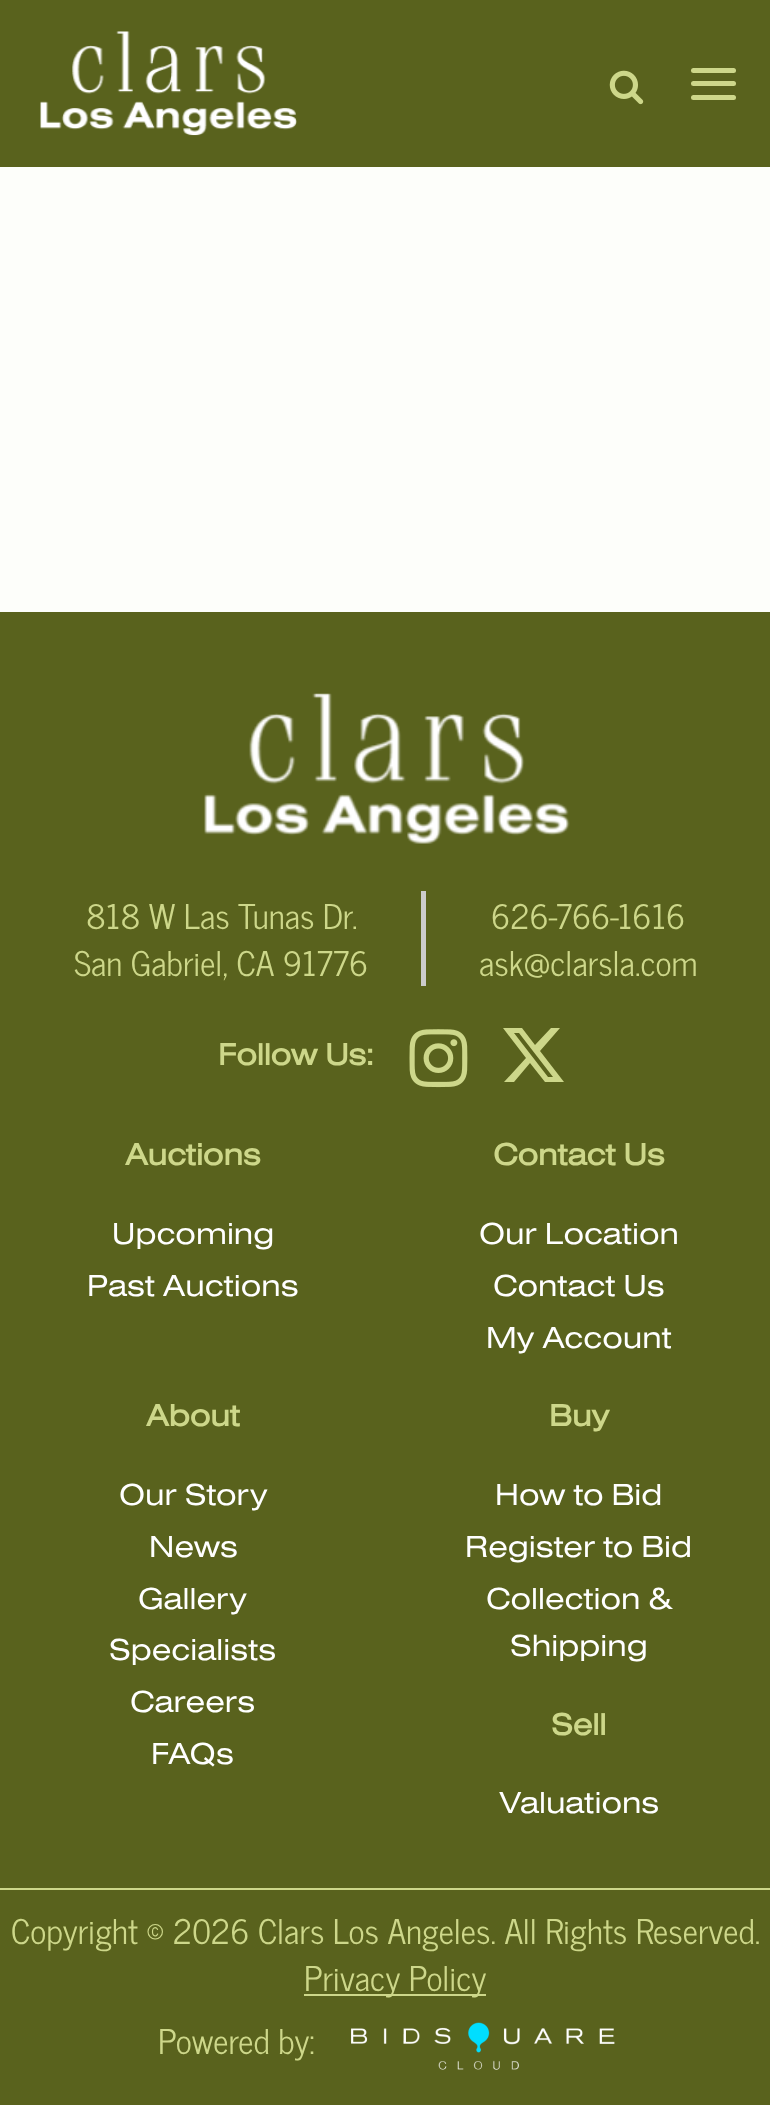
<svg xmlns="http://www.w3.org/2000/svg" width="770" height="2105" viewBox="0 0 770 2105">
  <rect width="100%" height="100%" fill="rgb(253,254,250)"/>
  <rect x="0" y="0" width="770" height="167" fill="rgb(89,98,29)"/>
  <image x="40" y="31" width="257" height="105" href="pic1.png"/>
  <image x="609" y="70" width="35" height="35" href="pic2.png"/>
  <rect x="691" y="68" width="45" height="5" rx="2.5" fill="rgb(205,215,138)"/>
  <rect x="691" y="81" width="45" height="5" rx="2.5" fill="rgb(205,215,138)"/>
  <rect x="691" y="95" width="45" height="5" rx="2.5" fill="rgb(205,215,138)"/>
  <rect x="0" y="612" width="770" height="1493" fill="rgb(89,98,29)"/>
  <image x="204" y="693" width="366" height="151" href="pic3.png"/>
  <g font-family="News Cycle" font-size="33.75" fill="rgb(205,215,138)">
    <text x="86" y="929">818 W Las Tunas Dr.</text>
    <text x="74" y="976">San Gabriel, CA 91776</text>
  </g>
  <rect x="421" y="891" width="5" height="95" fill="rgb(204,204,204)"/>
  <g font-family="News Cycle" font-size="33.75" fill="rgb(205,215,138)">
    <text x="491" y="929">626-766-1616</text>
    <text x="479" y="976">ask@clarsla.com</text>
  </g>
  <text x="218" y="1065" font-family="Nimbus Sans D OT" font-size="31.5" font-weight="bold" fill="rgb(205,215,138)">Follow Us:</text>
  <image x="409" y="1029" width="59" height="59" href="pic4.png"/>
  <path d="M551 1028H560L540 1051L564 1082H545L530 1063L514 1082H504L526 1058L503 1028H522L535 1045ZM548 1077H553L519 1033H514Z" fill="rgb(205,215,138)"/>
  <text x="125" y="1165" font-family="Nimbus Sans D OT" font-size="31.5" font-weight="bold" fill="rgb(205,215,138)">Auctions</text>
  <g font-family="Nimbus Sans D OT" font-size="31.5" fill="rgb(255,255,255)">
    <text x="112" y="1244">Upcoming</text>
    <text x="87" y="1296">Past Auctions</text>
  </g>
  <text x="493" y="1165" font-family="Nimbus Sans D OT" font-size="31.5" font-weight="bold" fill="rgb(205,215,138)">Contact Us</text>
  <g font-family="Nimbus Sans D OT" font-size="31.5" fill="rgb(255,255,255)">
    <text x="479" y="1244">Our Location</text>
    <text x="493" y="1296">Contact Us</text>
    <text x="486" y="1348">My Account</text>
  </g>
  <text x="146" y="1426" font-family="Nimbus Sans D OT" font-size="31.5" font-weight="bold" fill="rgb(205,215,138)">About</text>
  <g font-family="Nimbus Sans D OT" font-size="31.5" fill="rgb(255,255,255)">
    <text x="119" y="1505">Our Story</text>
    <text x="149" y="1557">News</text>
    <text x="138" y="1609">Gallery</text>
    <text x="109" y="1660">Specialists</text>
    <text x="130" y="1712">Careers</text>
    <text x="151" y="1764">FAQs</text>
  </g>
  <text x="549" y="1426" font-family="Nimbus Sans D OT" font-size="31.5" font-weight="bold" fill="rgb(205,215,138)">Buy</text>
  <g font-family="Nimbus Sans D OT" font-size="31.5" fill="rgb(255,255,255)">
    <text x="495" y="1505">How to Bid</text>
    <text x="465" y="1557">Register to Bid</text>
    <text x="486" y="1609">Collection &amp;</text>
    <text x="510" y="1656">Shipping</text>
  </g>
  <text x="551" y="1735" font-family="Nimbus Sans D OT" font-size="31.5" font-weight="bold" fill="rgb(205,215,138)">Sell</text>
  <text x="499" y="1813" font-family="Nimbus Sans D OT" font-size="31.5" fill="rgb(255,255,255)">Valuations</text>
  <rect x="0" y="1888" width="770" height="2" fill="rgb(205,215,138)"/>
  <text x="11" y="1944" font-family="News Cycle" font-size="33.75" fill="rgb(205,215,138)">Copyright © 2026 Clars Los Angeles. All Rights Reserved.</text>
  <rect x="304" y="1994" width="182" height="2" fill="rgb(205,215,138)"/>
  <g font-family="News Cycle" font-size="33.75" fill="rgb(205,215,138)">
    <text x="304" y="1991">Privacy Policy</text>
    <text x="158" y="2054">Powered by:</text>
  </g>
  <image x="351" y="2022" width="264" height="48" href="pic5.png"/>
</svg>
